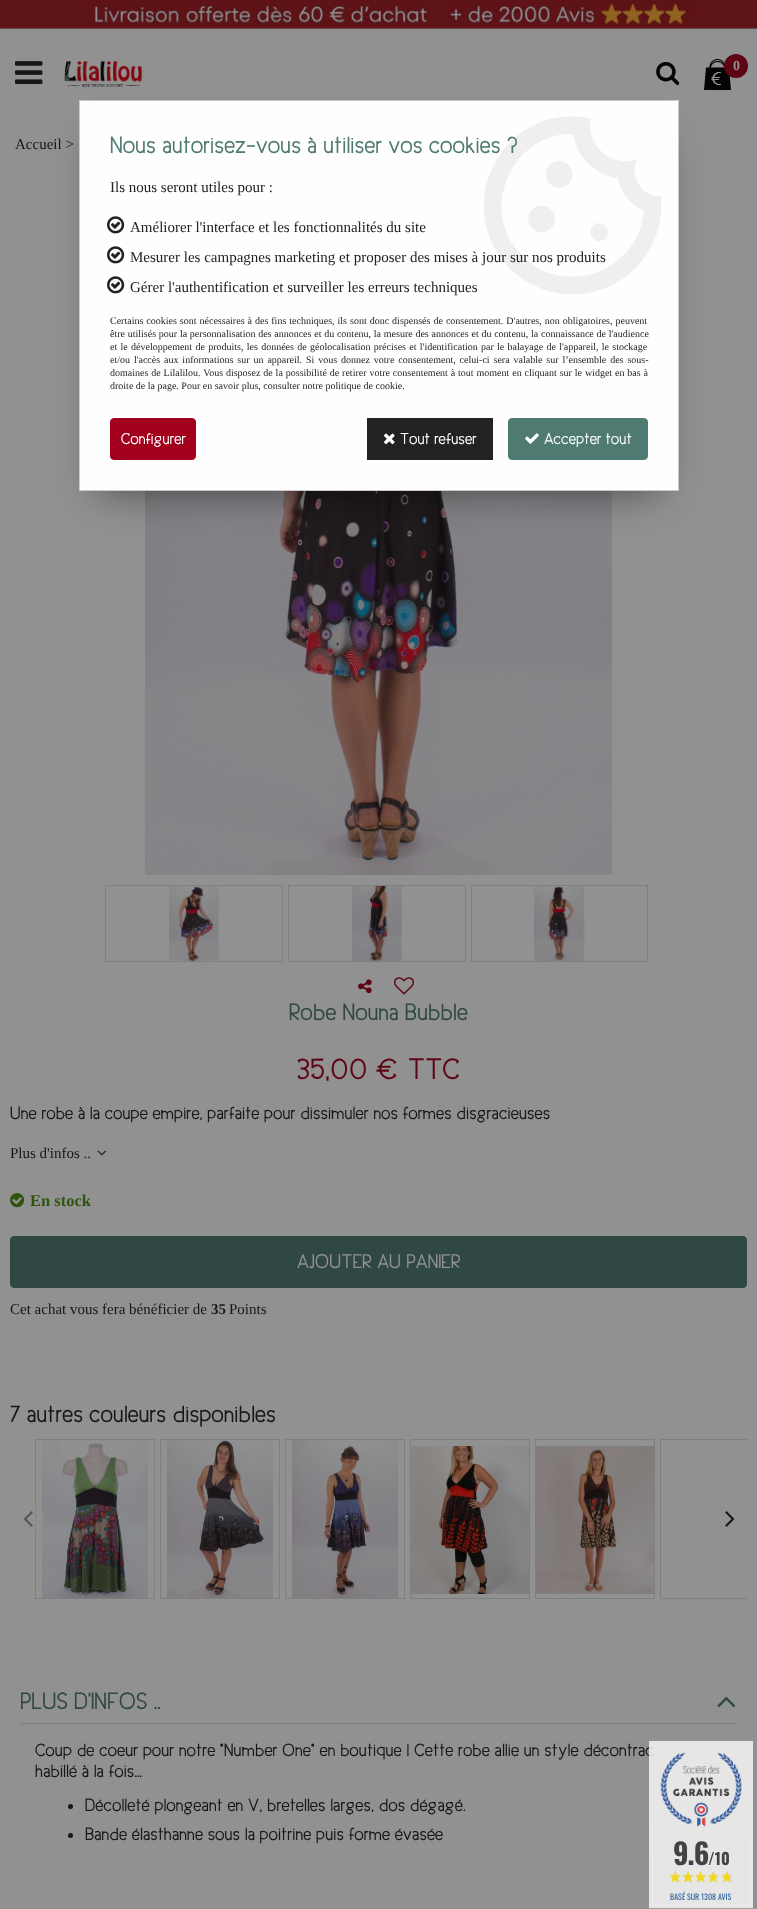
<svg xmlns="http://www.w3.org/2000/svg" width="757" height="1909" viewBox="0 0 757 1909">
  <defs>
    <clipPath id="clip1"><rect x="10" y="1439" width="737" height="160"/></clipPath>
  </defs>
  <rect width="100%" height="100%" fill="rgb(145,145,145)"/>
  <image x="0" y="0" width="757" height="29" href="pic1.png"/>
  <image x="15" y="61" width="28" height="23" href="pic2.png"/>
  <image x="64" y="61" width="79" height="26" href="pic3.png"/>
  <image x="656" y="62" width="24" height="23" href="pic4.png"/>
  <image x="704" y="59" width="27" height="31" href="pic5.png"/>
  <circle cx="736" cy="66" r="12" fill="rgb(94,5,21)"/>
  <text x="733" y="70" font-family="Liberation Serif" font-size="14" font-weight="bold" fill="rgb(145,145,145)">0</text>
  <text x="15" y="149" font-family="Liberation Serif" font-size="15" fill="rgb(23,23,23)">Accueil &gt;</text>
  <image x="145" y="491" width="467" height="384" href="pic6.png"/>
  <rect x="105.5" y="885.5" width="177" height="76" fill="none" stroke="rgb(127,127,127)"/>
  <image x="169" y="886" width="50" height="76" href="pic7.png"/>
  <rect x="288.5" y="885.5" width="177" height="76" fill="none" stroke="rgb(127,127,127)"/>
  <image x="352" y="886" width="50" height="76" href="pic8.png"/>
  <rect x="471.5" y="885.5" width="176" height="76" fill="none" stroke="rgb(127,127,127)"/>
  <image x="534" y="886" width="51" height="75" href="pic9.png"/>
  <image x="358" y="979" width="14" height="15" href="pic10.png"/>
  <image x="394" y="977" width="20" height="18" href="pic11.png"/>
  <text x="289" y="1020" font-family="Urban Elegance" font-size="24" font-weight="bold" fill="rgb(48,72,67)">Robe Nouna Bubble</text>
  <g font-family="Urban Elegance" font-size="30" font-weight="bold" fill="rgb(94,5,21)">
    <text x="297" y="1079">35,00 €</text>
    <text x="408" y="1079">TTC</text>
  </g>
  <text x="10" y="1119" font-family="Urban Elegance" font-size="18" font-weight="bold" fill="rgb(23,23,23)">Une robe à la coupe empire, parfaite pour dissimuler nos formes disgracieuses</text>
  <text x="10" y="1158" font-family="Liberation Serif" font-size="15" fill="rgb(23,23,23)">Plus d'infos ..</text>
  <image x="97" y="1150" width="9" height="6" href="pic12.png"/>
  <image x="10" y="1193" width="15" height="15" href="pic13.png"/>
  <text x="30" y="1206" font-family="Liberation Serif" font-size="16.5" font-weight="bold" fill="rgb(47,84,14)">En stock</text>
  <rect x="10.5" y="1236.5" width="736" height="51" rx="3.5" fill="rgb(48,72,67)" stroke="rgb(48,72,67)"/>
  <text x="297" y="1268" font-family="Urban Elegance" font-size="20" font-weight="bold" fill="rgb(145,145,145)">AJOUTER AU PANIER</text>
  <text x="10" y="1314" font-family="Liberation Serif" font-size="15" fill="rgb(23,23,23)">Cet achat vous fera bénéficier de</text>
  <text x="211" y="1314" font-family="Liberation Serif" font-size="15" font-weight="bold" fill="rgb(23,23,23)">35</text>
  <text x="229" y="1314" font-family="Liberation Serif" font-size="15" fill="rgb(23,23,23)">Points</text>
  <text x="10" y="1422" font-family="Urban Elegance" font-size="24" font-weight="bold" fill="rgb(23,23,23)">7 autres couleurs disponibles</text>
  <rect x="35.5" y="1439.5" width="119" height="159" fill="none" stroke="rgb(127,127,127)"/>
  <image x="42" y="1440" width="106" height="158" href="pic14.png"/>
  <rect x="160.5" y="1439.5" width="119" height="159" fill="none" stroke="rgb(127,127,127)"/>
  <image x="167" y="1440" width="106" height="158" href="pic15.png"/>
  <rect x="285.5" y="1439.5" width="119" height="159" fill="none" stroke="rgb(127,127,127)"/>
  <image x="292" y="1440" width="106" height="158" href="pic16.png"/>
  <rect x="410.5" y="1439.5" width="119" height="159" fill="none" stroke="rgb(127,127,127)"/>
  <image x="411" y="1446" width="118" height="148" href="pic17.png"/>
  <rect x="535.5" y="1439.5" width="119" height="159" fill="none" stroke="rgb(127,127,127)"/>
  <image x="536" y="1446" width="118" height="148" href="pic18.png"/>
  <g clip-path="url(#clip1)">
    <rect x="660.5" y="1439.5" width="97" height="159" fill="none" stroke="rgb(127,127,127)"/>
  </g>
  <circle cx="30" cy="1519" r="15" fill="rgba(145,145,145,0.42)"/>
  <image x="23" y="1511" width="10" height="16" href="pic19.png"/>
  <image x="725" y="1511" width="10" height="16" href="pic20.png"/>
  <rect x="20" y="1723" width="717" height="1" fill="rgb(127,127,127)"/>
  <text x="20" y="1709" font-family="Urban Elegance" font-size="24" font-weight="bold" fill="rgb(48,72,67)">PLUS D'INFOS ..</text>
  <image x="717" y="1696" width="19" height="12" href="pic21.png"/>
  <g font-family="Urban Elegance" font-size="18" font-weight="bold" fill="rgb(23,23,23)">
    <text>
      <tspan x="35" y="1756">Coup de coeur pour notre "Number One" en boutique ! Cette robe allie un style décontrac</tspan>
      <tspan x="35" y="1777">habillé à la fois...</tspan>
    </text>
  </g>
  <circle cx="70.5" cy="1806.5" r="2.5" fill="rgb(23,23,23)"/>
  <text x="85" y="1811" font-family="Urban Elegance" font-size="18" font-weight="bold" fill="rgb(23,23,23)">Décolleté plongeant en V, bretelles larges, dos dégagé.</text>
  <circle cx="70.5" cy="1835.5" r="2.5" fill="rgb(23,23,23)"/>
  <text x="85" y="1840" font-family="Urban Elegance" font-size="18" font-weight="bold" fill="rgb(23,23,23)">Bande élasthanne sous la poitrine puis forme évasée</text>
  <rect x="99" y="140" width="560" height="351" fill="rgba(0,0,0,0.5)" filter="blur(20px)"/>
  <rect x="80" y="101" width="598" height="389" fill="rgb(254,254,254)"/>
  <image x="484" y="116" width="177" height="178" href="pic22.png"/>
  <rect x="79.5" y="100.5" width="599" height="390" fill="none" stroke="rgb(202,202,202)"/>
  <text x="110" y="153" font-family="Urban Elegance" font-size="24" font-weight="bold" fill="rgb(79,122,113)">Nous autorisez-vous à utiliser vos cookies ?</text>
  <text x="110" y="192" font-family="Liberation Serif" font-size="15" fill="rgb(34,34,34)">Ils nous seront utiles pour :</text>
  <image x="107" y="216" width="18" height="18" href="pic23.png"/>
  <text x="130" y="232" font-family="Liberation Serif" font-size="15" fill="rgb(34,34,34)">Améliorer l'interface et les fonctionnalités du site</text>
  <image x="107" y="246" width="18" height="18" href="pic23.png"/>
  <text x="130" y="262" font-family="Liberation Serif" font-size="15" fill="rgb(34,34,34)">Mesurer les campagnes marketing et proposer des mises à jour sur nos produits</text>
  <image x="107" y="276" width="18" height="18" href="pic23.png"/>
  <text x="130" y="292" font-family="Liberation Serif" font-size="15" fill="rgb(34,34,34)">Gérer l'authentification et surveiller les erreurs techniques</text>
  <g font-family="Liberation Serif" font-size="10" fill="rgb(34,34,34)">
    <text>
      <tspan x="110" y="324" word-spacing="0.5">Certains cookies sont nécessaires à des fins techniques, ils sont donc dispensés de consentement. D'autres, non obligatoires, peuvent</tspan>
      <tspan x="110" y="337" word-spacing="0.25">être utilisés pour la personnalisation des annonces et du contenu, la mesure des annonces et du contenu, la connaissance de l'audience</tspan>
      <tspan x="110" y="350" word-spacing="0.8">et le développement de produits, les données de géolocalisation précises et l'identification par le balayage de l'appareil, le stockage</tspan>
      <tspan x="110" y="363" word-spacing="1.4">et/ou l'accès aux informations sur un appareil. Si vous donnez votre consentement, celui-ci sera valable sur l’ensemble des sous-</tspan>
      <tspan x="110" y="376" word-spacing="0.4">domaines de Lilalilou. Vous disposez de la possibilité de retirer votre consentement à tout moment en cliquant sur le widget en bas à</tspan>
      <tspan x="110" y="389">droite de la page. Pour en savoir plus, consulter notre politique de cookie.</tspan>
    </text>
  </g>
  <rect x="110.5" y="418.5" width="85" height="41" rx="3.5" fill="rgb(163,0,30)" stroke="rgb(163,0,30)"/>
  <text x="121" y="444" font-family="Urban Elegance" font-size="16" font-weight="bold" fill="rgb(255,255,255)">Configurer</text>
  <rect x="367" y="418" width="126" height="42" fill="rgb(34,34,34)"/>
  <image x="384" y="433" width="11" height="12" href="pic24.png"/>
  <text x="400" y="444" font-family="Urban Elegance" font-size="16" font-weight="bold" fill="rgb(255,255,255)">Tout refuser</text>
  <rect x="508.5" y="418.5" width="139" height="41" rx="3.5" fill="rgb(79,122,113)" stroke="rgb(79,122,113)"/>
  <image x="525" y="433" width="14" height="11" href="pic25.png"/>
  <text x="544" y="444" font-family="Urban Elegance" font-size="16" font-weight="bold" fill="rgb(255,255,255)">Accepter tout</text>
  <image x="649" y="1741" width="104" height="168" href="pic26.png"/>
  <text x="673" y="1865" font-family="Oswald" font-size="29" font-weight="bold" letter-spacing="-1" fill="rgb(68,65,69)">9.6</text>
  <text x="708" y="1865" font-family="Oswald" font-size="16" font-weight="bold" fill="rgb(68,65,69)">/10</text>
  <image x="670" y="1870" width="61" height="13" href="pic27.png"/>
  <text x="670" y="1900" font-family="Oswald" font-size="8" fill="rgb(54,102,163)">BASÉ SUR 1308 AVIS</text>
</svg>
